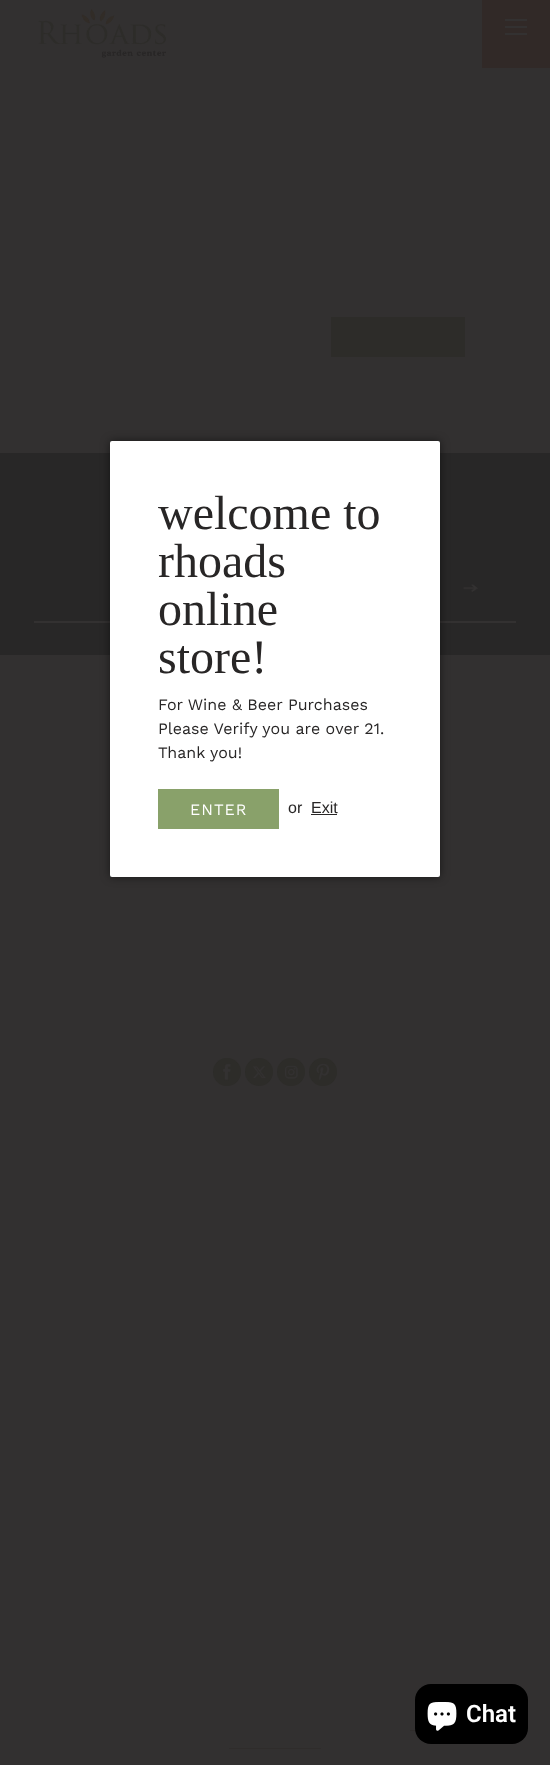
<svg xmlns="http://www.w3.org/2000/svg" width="550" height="1765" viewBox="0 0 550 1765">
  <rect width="100%" height="100%" fill="rgb(50,48,48)"/>
  <image x="38" y="9" width="128" height="49" href="pic1.png"/>
  <rect x="482" y="0" width="68" height="68" fill="rgb(49,41,39)"/>
  <rect x="505" y="19" width="22" height="2" fill="rgb(51,49,49)"/>
  <rect x="505" y="26" width="22" height="2" fill="rgb(51,49,49)"/>
  <rect x="505" y="33" width="22" height="2" fill="rgb(51,49,49)"/>
  <rect x="331" y="317" width="134" height="40" fill="rgb(45,44,41)"/>
  <rect x="0" y="453" width="550" height="202" fill="rgb(40,39,39)"/>
  <rect x="34" y="621" width="482" height="2" fill="rgb(51,49,49)"/>
  <image x="463" y="584" width="15" height="9" href="pic2.png"/>
  <rect x="110" y="441" width="330" height="436" rx="2" fill="rgba(0,0,0,0.5)" filter="blur(5px)"/>
  <rect x="110" y="441" width="330" height="436" rx="2" fill="rgb(255,255,255)"/>
  <g font-family="Liberation Serif" font-size="48" fill="rgb(40,38,38)">
    <text>
      <tspan x="158" y="529">welcome to</tspan>
      <tspan x="158" y="577">rhoads</tspan>
      <tspan x="158" y="625">online</tspan>
      <tspan x="158" y="673">store!</tspan>
    </text>
  </g>
  <g font-family="Work Sans" font-size="16" fill="rgb(40,38,38)">
    <text>
      <tspan x="158" y="710">For Wine &amp; Beer Purchases</tspan>
      <tspan x="158" y="734">Please Verify you are over 21.</tspan>
      <tspan x="158" y="758">Thank you!</tspan>
    </text>
  </g>
  <rect x="158" y="789" width="121" height="40" fill="rgb(137,161,106)"/>
  <text x="190" y="815" font-family="Work Sans" font-size="16" letter-spacing="1" fill="rgb(255,255,255)">ENTER</text>
  <g font-family="Liberation Sans" font-size="16" fill="rgb(40,38,38)">
    <text x="288" y="813">or</text>
    <text x="311" y="813">Exit</text>
  </g>
  <rect x="311" y="814" width="26" height="1" fill="rgb(40,38,38)"/>
  <circle cx="227" cy="1072" r="14" fill="rgb(45,44,41)"/>
  <image x="222" y="1063" width="9" height="18" href="pic3.png"/>
  <circle cx="259" cy="1072" r="14" fill="rgb(45,44,41)"/>
  <image x="253" y="1066" width="13" height="13" href="pic4.png"/>
  <circle cx="291" cy="1072" r="14" fill="rgb(45,44,41)"/>
  <image x="285" y="1065" width="13" height="14" href="pic5.png"/>
  <circle cx="323" cy="1072" r="14" fill="rgb(45,44,41)"/>
  <image x="316" y="1063" width="14" height="18" href="pic6.png"/>
  <rect x="410" y="1730" width="6" height="1" fill="rgb(47,44,43)"/>
  <rect x="415" y="1684" width="113" height="60" rx="16" fill="rgb(0,0,0)"/>
  <image x="427" y="1702" width="30" height="29" href="pic7.png"/>
  <text x="466" y="1722" font-family="Roboto" font-size="24" font-weight="600" fill="rgb(255,255,255)">Chat</text>
  <rect x="229" y="1748" width="92" height="1" fill="rgb(47,44,43)"/>
</svg>
